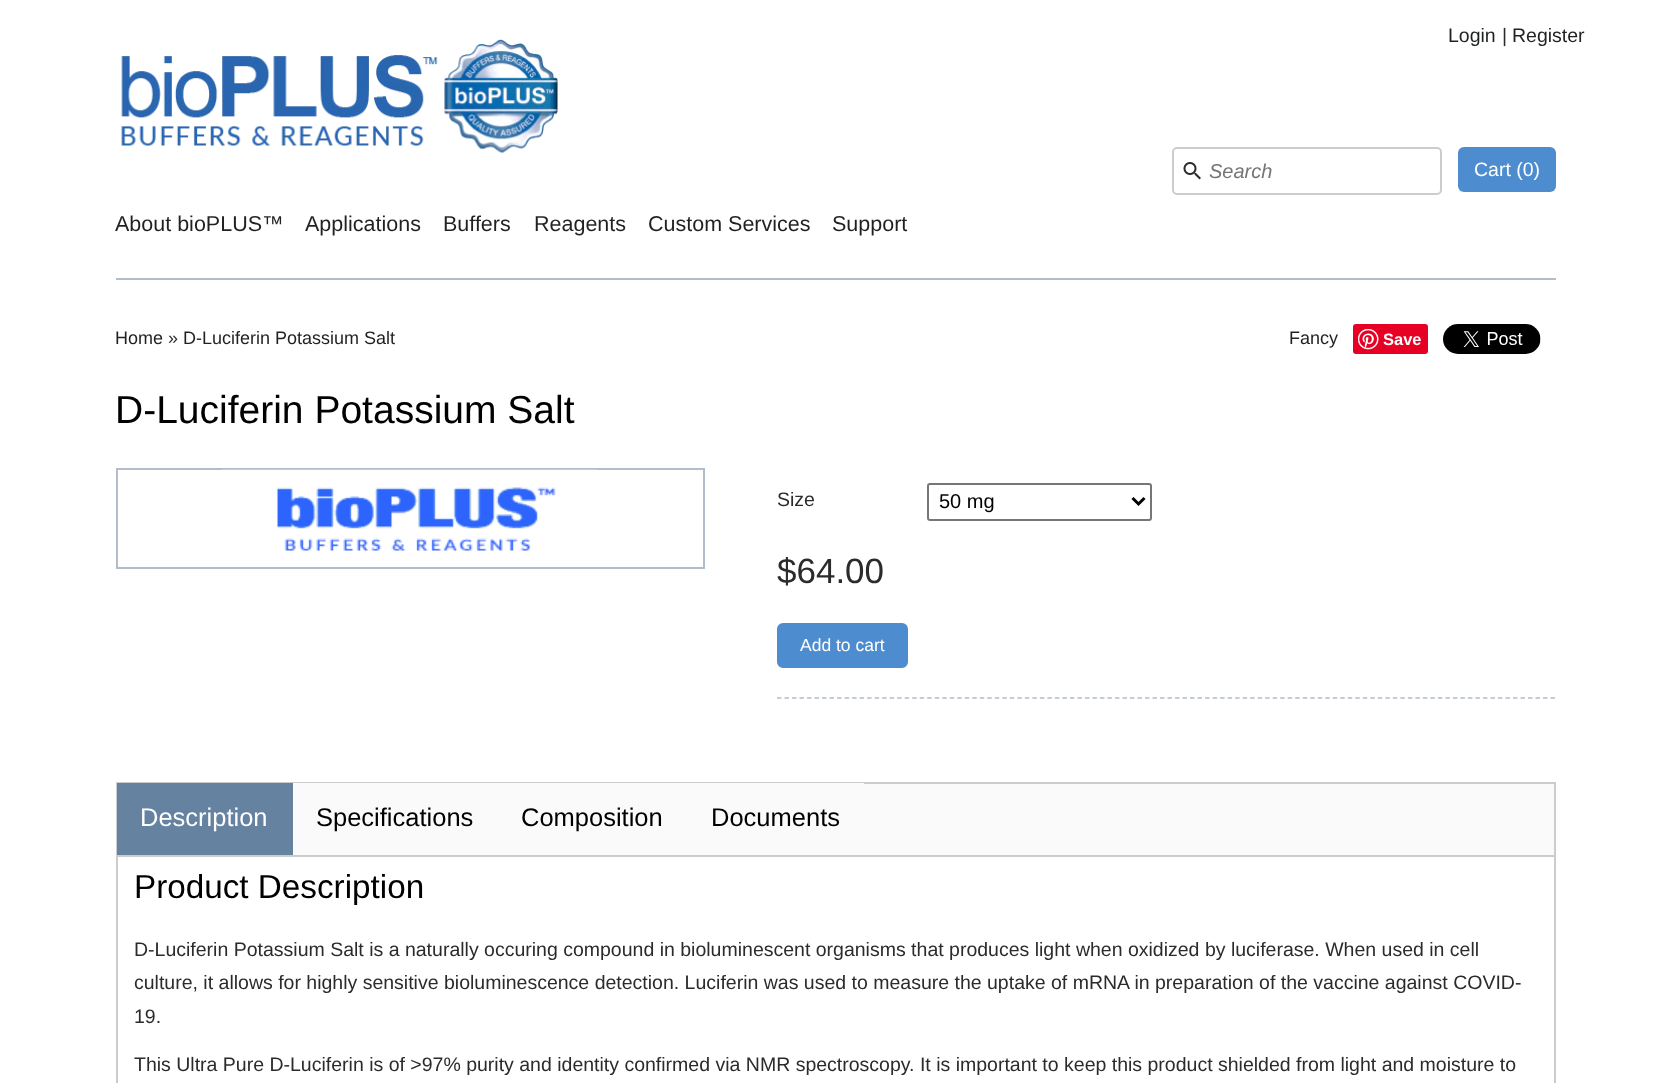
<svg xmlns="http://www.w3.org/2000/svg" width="1669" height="1083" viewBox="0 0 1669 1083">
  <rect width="100%" height="100%" fill="rgb(255,255,255)"/>
  <text x="1448" y="42" font-family="Liberation Sans" font-size="19.5" fill="rgb(31,33,35)">Login</text>
  <text x="1502" y="42" font-family="Liberation Sans" font-size="19.5" fill="rgb(43,43,45)">|</text>
  <text x="1512" y="42" font-family="Liberation Sans" font-size="19.5" fill="rgb(31,33,35)">Register</text>
  <image x="121" y="39" width="437" height="114" href="pic1.png"/>
  <rect x="1173" y="148" width="268" height="46" rx="4" fill="none" stroke="rgb(204,204,204)" stroke-width="2"/>
  <image x="1183" y="162" width="18" height="18" href="pic2.png"/>
  <text x="1209" y="178" font-family="Liberation Sans" font-size="20" font-style="italic" fill="rgb(117,117,117)">Search</text>
  <rect x="1458" y="147" width="98" height="45" rx="6" fill="rgb(77,141,207)"/>
  <text x="1474" y="176" font-family="Liberation Sans" font-size="19.5" fill="rgb(255,255,255)">Cart (0)</text>
  <rect x="116" y="278" width="1440" height="2" fill="rgb(177,189,202)"/>
  <g font-family="Liberation Sans" font-size="21.5" fill="rgb(31,33,35)">
    <text x="115" y="231">About bioPLUS™</text>
    <text x="305" y="231">Applications</text>
    <text x="443" y="231">Buffers</text>
    <text x="534" y="231">Reagents</text>
    <text x="648" y="231">Custom Services</text>
    <text x="832" y="231">Support</text>
  </g>
  <text x="115" y="344" font-family="Liberation Sans" font-size="18" fill="rgb(31,33,35)">Home</text>
  <text x="168" y="344" font-family="Liberation Sans" font-size="18" fill="rgb(43,43,45)">»</text>
  <g font-family="Liberation Sans" font-size="18" fill="rgb(31,33,35)">
    <text x="183" y="344">D-Luciferin Potassium Salt</text>
    <text x="1289" y="344">Fancy</text>
  </g>
  <rect x="1353" y="324" width="75" height="30" rx="3" fill="rgb(230,0,35)"/>
  <image x="1358" y="329" width="21" height="21" href="pic3.png"/>
  <text x="1383" y="345" font-family="Liberation Sans" font-size="16.5" font-weight="bold" fill="rgb(255,255,255)">Save</text>
  <image x="1443" y="324" width="98" height="30" href="pic4.png"/>
  <text x="115" y="423" font-family="Liberation Sans" font-size="39" fill="rgb(0,0,0)">D-Luciferin Potassium Salt</text>
  <rect x="117" y="469" width="587" height="99" fill="none" stroke="rgb(177,189,202)" stroke-width="2"/>
  <image x="222" y="469" width="375" height="82" href="pic5.png"/>
  <text x="777" y="506" font-family="Liberation Sans" font-size="19.5" fill="rgb(43,43,45)">Size</text>
  <rect x="928" y="484" width="223" height="36" rx="2" fill="none" stroke="rgb(118,118,118)" stroke-width="2"/>
  <path d="M1132.5 498L1138.5 504L1144.5 498" fill="none" stroke="rgb(0,0,0)" stroke-width="3"/>
  <text x="939" y="508" font-family="Liberation Sans" font-size="20" fill="rgb(0,0,0)">50 mg</text>
  <text x="777" y="583" font-family="Liberation Sans" font-size="35" fill="rgb(43,43,45)">$64.00</text>
  <rect x="778" y="624" width="129" height="43" rx="5" fill="rgb(77,141,207)" stroke="rgb(77,141,207)" stroke-width="2"/>
  <text x="800" y="651" font-family="Liberation Sans" font-size="17.5" fill="rgb(255,255,255)">Add to cart</text>
  <path d="M777 698H1555.5" fill="none" stroke="rgb(177,189,202)" stroke-width="1.5" stroke-dasharray="4.5 3.01"/>
  <rect x="864" y="784" width="690" height="71" fill="rgb(250,250,250)"/>
  <rect x="117" y="783" width="1438" height="73" fill="none" stroke="rgb(204,204,204)" stroke-width="2"/>
  <rect x="117" y="783" width="176" height="72" fill="rgb(101,130,160)"/>
  <text x="140" y="826" font-family="Liberation Sans" font-size="25.5" fill="rgb(255,255,255)">Description</text>
  <rect x="293" y="783" width="571" height="72" fill="rgb(250,250,250)"/>
  <g font-family="Liberation Sans" font-size="25.5" fill="rgb(0,0,0)">
    <text x="316" y="826">Specifications</text>
    <text x="521" y="826">Composition</text>
    <text x="711" y="826">Documents</text>
  </g>
  <rect x="1554" y="857" width="2" height="226" fill="rgb(204,204,204)"/>
  <rect x="116" y="857" width="2" height="226" fill="rgb(204,204,204)"/>
  <text x="134" y="898" font-family="Liberation Sans" font-size="33.25" fill="rgb(0,0,0)">Product Description</text>
  <g font-family="Liberation Sans" font-size="19.5" fill="rgb(43,43,45)">
    <text>
      <tspan x="134" y="956">D-Luciferin Potassium Salt is a naturally occuring compound in bioluminescent organisms that produces light when oxidized by luciferase. When used in cell</tspan>
      <tspan x="134" y="989">culture, it allows for highly sensitive bioluminescence detection. Luciferin was used to measure the uptake of mRNA in preparation of the vaccine against COVID-</tspan>
      <tspan x="134" y="1023">19.</tspan>
    </text>
    <text x="134" y="1071">This Ultra Pure D-Luciferin is of &gt;97% purity and identity confirmed via NMR spectroscopy. It is important to keep this product shielded from light and moisture to</text>
  </g>
</svg>
